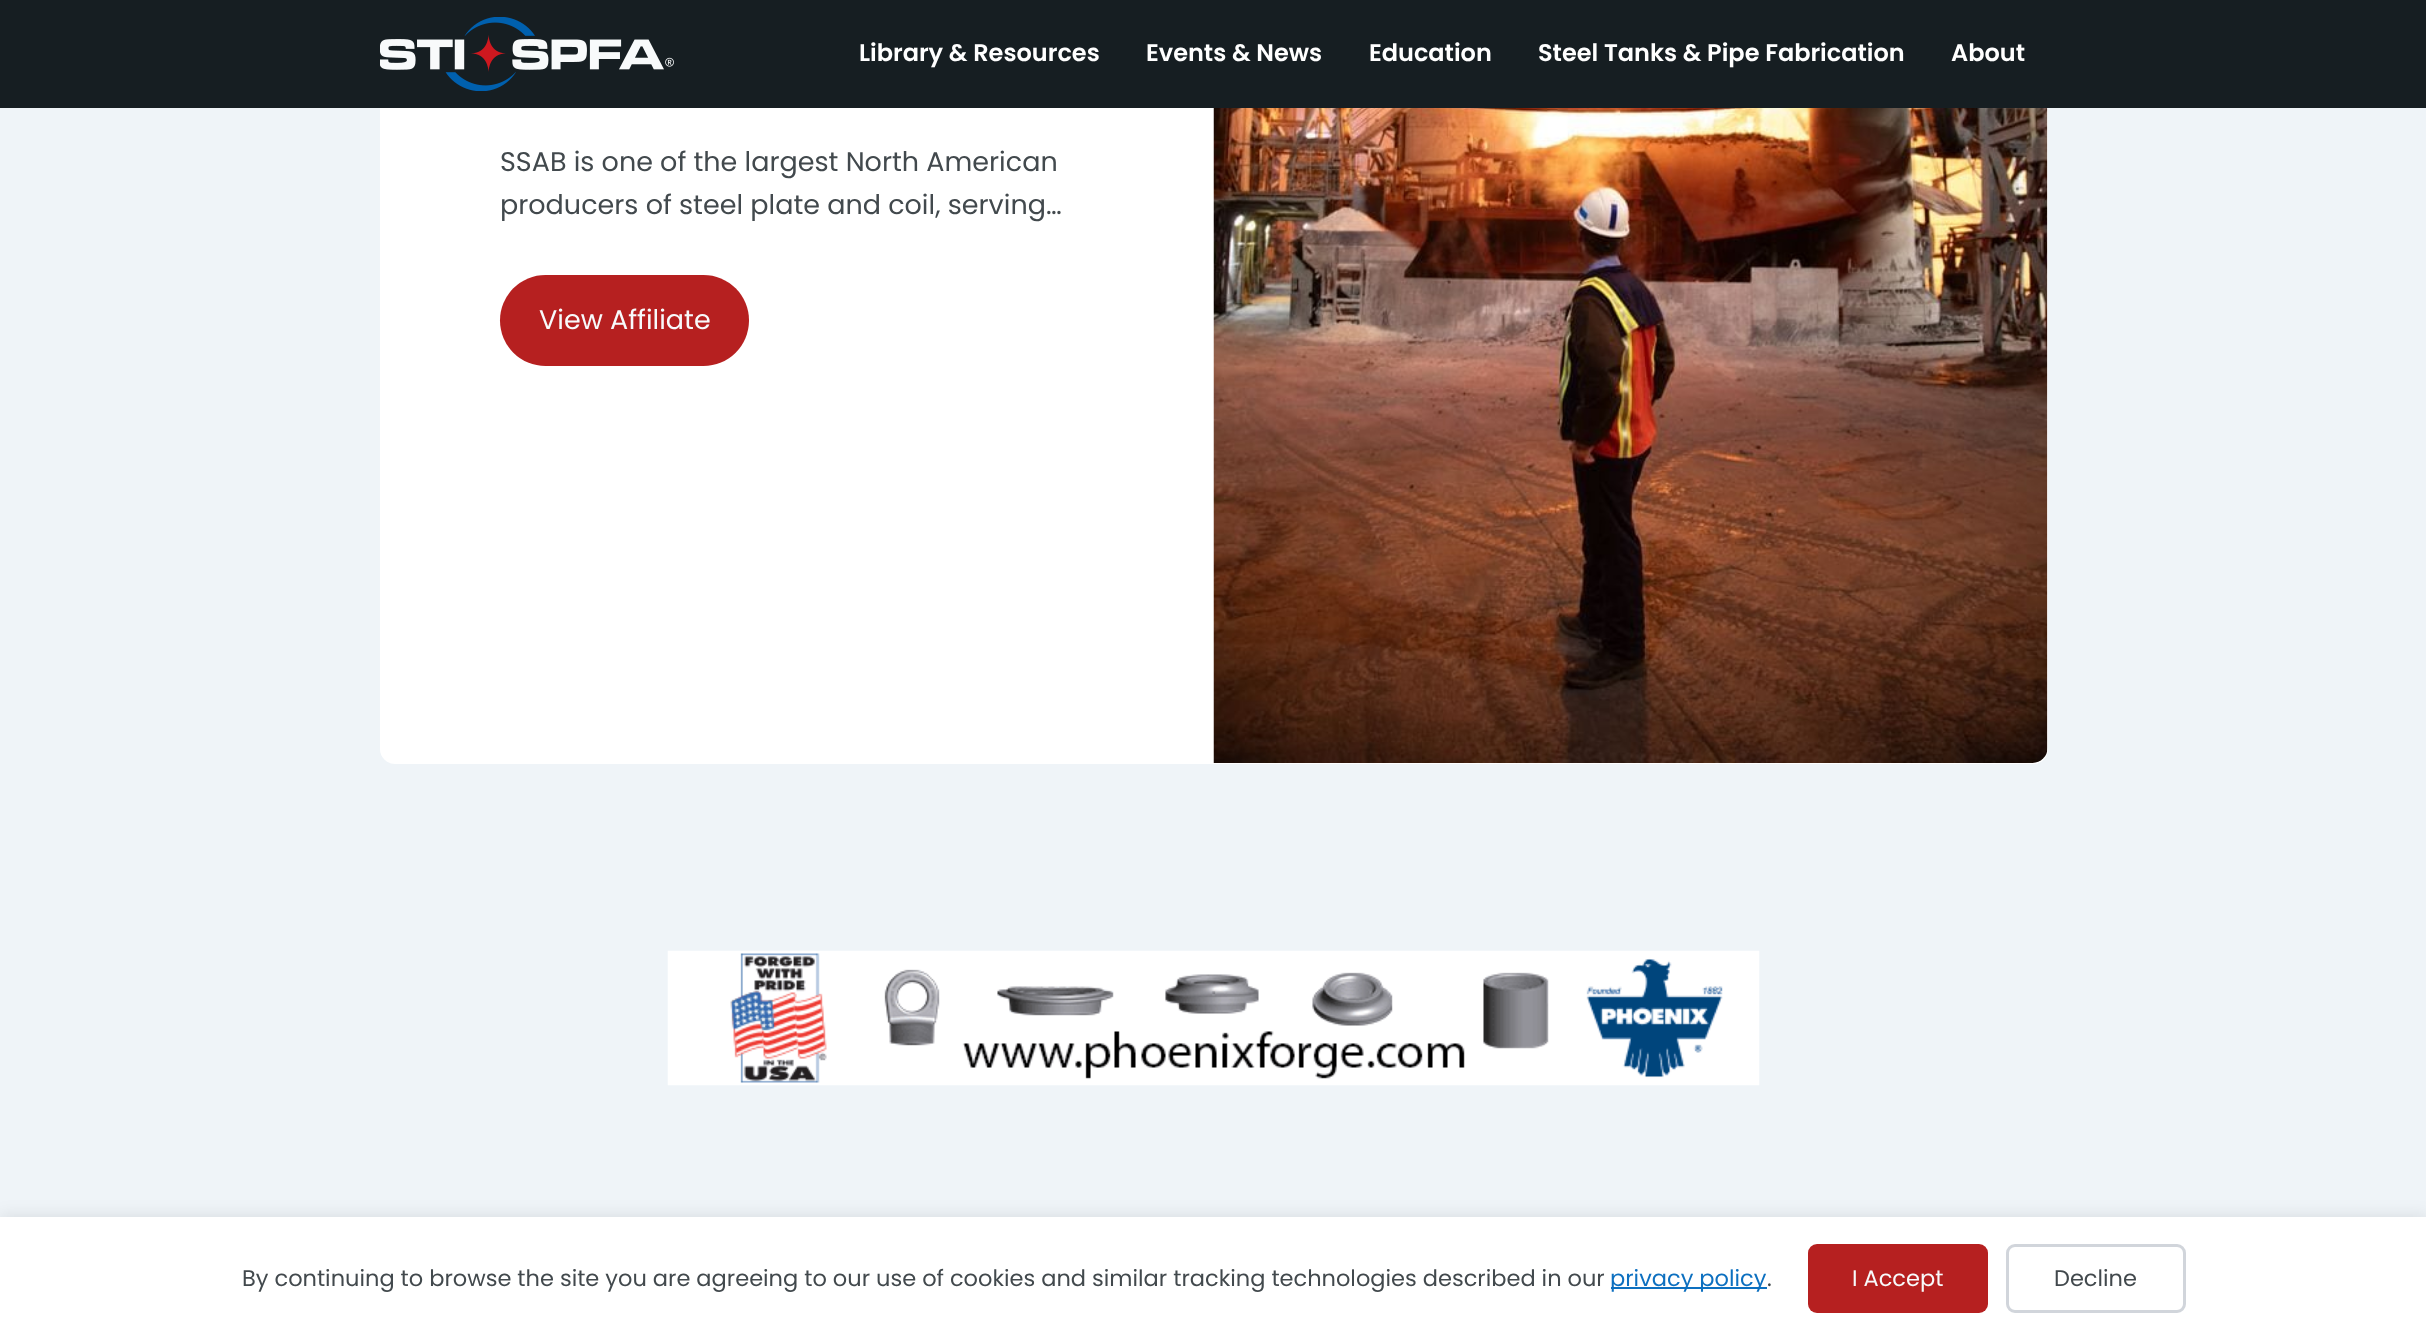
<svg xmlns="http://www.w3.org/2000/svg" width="2426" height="1339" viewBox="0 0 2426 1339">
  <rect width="100%" height="100%" fill="rgb(239,244,248)"/>
  <rect x="380" y="-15" width="1668" height="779" rx="15" fill="rgb(255,255,255)"/>
  <path d="M1214-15H2033C2041.5-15 2048-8.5 2048 0V749C2048 757.5 2041.5 764 2033 764H1214Z" fill="rgb(255,255,255)"/>
  <rect x="0" y="0" width="2426" height="108" fill="rgb(22,30,34)"/>
  <image x="380" y="17" width="294" height="74" href="pic1.png"/>
  <g font-family="Poppins" font-size="24" font-weight="600" fill="rgb(255,255,255)">
    <text x="859" y="61">Library &amp; Resources</text>
    <text x="1146" y="61">Events &amp; News</text>
    <text x="1369" y="61">Education</text>
    <text x="1538" y="61">Steel Tanks &amp; Pipe Fabrication</text>
    <text x="1951" y="61">About</text>
  </g>
  <g font-family="Poppins" font-size="27" fill="rgb(66,73,77)">
    <text>
      <tspan x="500" y="171">SSAB is one of the largest North American</tspan>
      <tspan x="500" y="214">producers of steel plate and coil, serving…</tspan>
    </text>
  </g>
  <rect x="500" y="275" width="249" height="91" rx="45.5" fill="rgb(182,32,32)"/>
  <text x="539" y="329" font-family="Poppins" font-size="27" fill="rgb(248,250,251)">View Affiliate</text>
  <image x="1213" y="108" width="835" height="655" href="pic2.png"/>
  <image x="667" y="950" width="1093" height="136" href="pic3.png"/>
  <rect x="0" y="1214" width="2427" height="123" fill="rgba(0,0,0,0.08)" filter="blur(7.5px)"/>
  <rect x="0" y="1217" width="2426" height="122" fill="rgb(255,255,255)"/>
  <text x="242" y="1286" font-family="Poppins" font-size="22.5" fill="rgb(66,73,77)">By continuing to browse the site you are agreeing to our use of cookies and similar tracking technologies described in our</text>
  <rect x="1611" y="1287" width="156" height="2" fill="rgb(13,112,192)"/>
  <text x="1610" y="1286" font-family="Poppins" font-size="22.5" fill="rgb(13,112,192)">privacy policy</text>
  <text x="1767" y="1286" font-family="Poppins" font-size="22.5" fill="rgb(66,73,77)">.</text>
  <rect x="1808" y="1244" width="180" height="69" rx="9" fill="rgb(182,32,32)"/>
  <text x="1852" y="1286" font-family="Poppins" font-size="22.5" fill="rgb(248,250,251)">I Accept</text>
  <rect x="2007.5" y="1245.5" width="177" height="66" rx="7.5" fill="none" stroke="rgb(209,213,219)" stroke-width="3"/>
  <text x="2054" y="1286" font-family="Poppins" font-size="22.5" fill="rgb(66,73,77)">Decline</text>
</svg>
